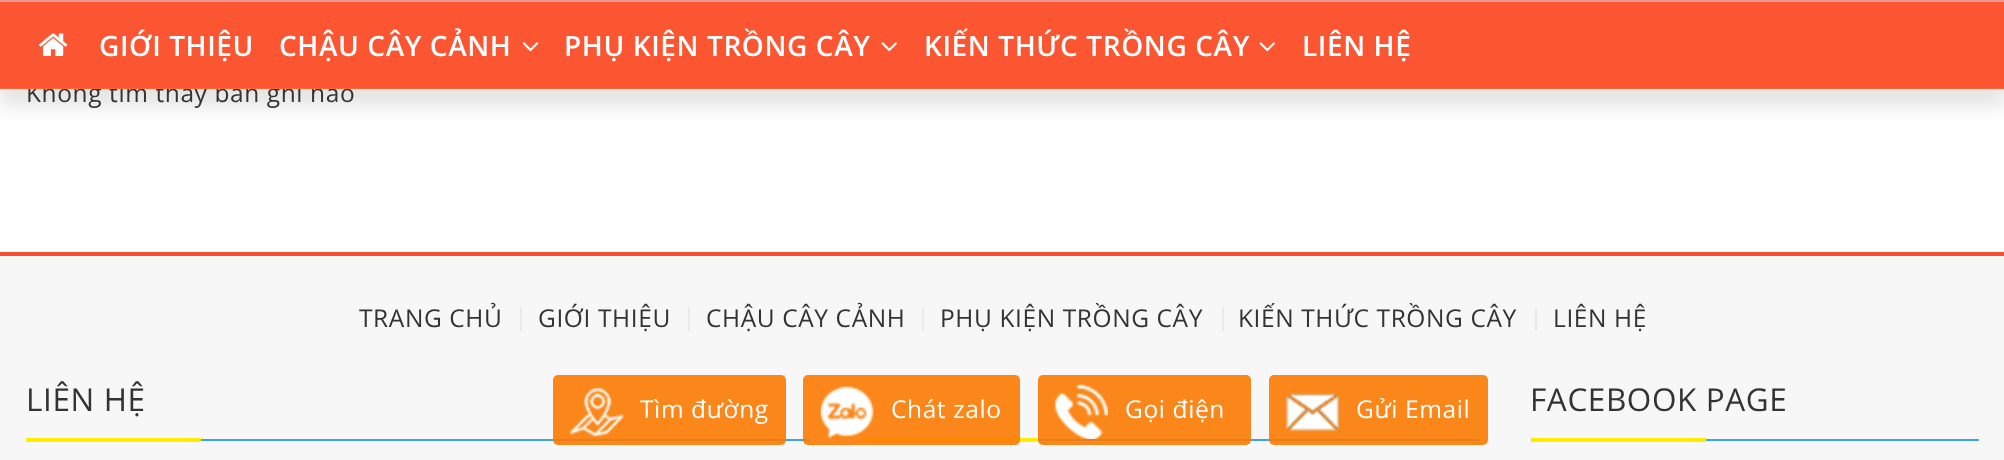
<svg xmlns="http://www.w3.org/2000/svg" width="2004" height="460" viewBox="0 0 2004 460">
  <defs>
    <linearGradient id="g1" gradientUnits="userSpaceOnUse" x1="1003" y1="0" x2="1003" y2="89"><stop offset="0" stop-color="rgb(245,61,45)"/><stop offset="1" stop-color="rgb(255,102,51)"/></linearGradient>
  </defs>
  <rect width="100%" height="100%" fill="rgb(255,255,255)"/>
  <rect x="0" y="18" width="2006" height="89" fill="rgba(0,0,0,0.1)" filter="blur(9px)"/>
  <text x="26" y="102" font-family="Open Sans" font-size="24.5" letter-spacing="0.6" fill="rgb(51,51,51)">Không tìm thấy bản ghi nào</text>
  <rect x="0" y="88" width="2004" height="1" fill="url(#g1)"/>
  <rect x="0" y="2" width="2004" height="86" fill="rgb(251,85,49)"/>
  <rect x="0" y="0" width="2004" height="2" fill="rgb(232,150,150)"/>
  <image x="39" y="33" width="29" height="23" href="pic1.png"/>
  <g font-family="Open Sans" font-size="28" font-weight="600" letter-spacing="0.6" fill="rgb(255,255,255)">
    <text x="99" y="56">GIỚI THIỆU</text>
    <text x="279" y="56">CHẬU CÂY CẢNH</text>
  </g>
  <image x="522" y="42" width="17" height="10" href="pic2.png"/>
  <text x="564" y="56" font-family="Open Sans" font-size="28" font-weight="600" letter-spacing="0.6" fill="rgb(255,255,255)">PHỤ KIỆN TRỒNG CÂY</text>
  <image x="881" y="42" width="16" height="10" href="pic3.png"/>
  <text x="924" y="56" font-family="Open Sans" font-size="28" font-weight="600" letter-spacing="0.6" fill="rgb(255,255,255)">KIẾN THỨC TRỒNG CÂY</text>
  <image x="1259" y="42" width="16" height="10" href="pic3.png"/>
  <text x="1302" y="56" font-family="Open Sans" font-size="28" font-weight="600" letter-spacing="0.6" fill="rgb(255,255,255)">LIÊN HỆ</text>
  <rect x="0" y="256" width="2004" height="204" fill="rgb(247,247,247)"/>
  <rect x="0" y="252" width="2004" height="4" fill="rgb(249,78,47)"/>
  <text x="359" y="327" font-family="Open Sans" font-size="24.5" letter-spacing="0.6" fill="rgb(51,51,51)">TRANG CHỦ</text>
  <rect x="520" y="308" width="2" height="23" fill="rgb(233,233,233)"/>
  <text x="538" y="327" font-family="Open Sans" font-size="24.5" letter-spacing="0.6" fill="rgb(51,51,51)">GIỚI THIỆU</text>
  <rect x="688" y="308" width="2" height="23" fill="rgb(233,233,233)"/>
  <text x="706" y="327" font-family="Open Sans" font-size="24.5" letter-spacing="0.6" fill="rgb(51,51,51)">CHẬU CÂY CẢNH</text>
  <rect x="922" y="308" width="2" height="23" fill="rgb(233,233,233)"/>
  <text x="940" y="327" font-family="Open Sans" font-size="24.5" letter-spacing="0.6" fill="rgb(51,51,51)">PHỤ KIỆN TRỒNG CÂY</text>
  <rect x="1222" y="308" width="2" height="23" fill="rgb(233,233,233)"/>
  <text x="1238" y="327" font-family="Open Sans" font-size="24.5" letter-spacing="0.6" fill="rgb(51,51,51)">KIẾN THỨC TRỒNG CÂY</text>
  <rect x="1535" y="308" width="2" height="23" fill="rgb(233,233,233)"/>
  <text x="1553" y="327" font-family="Open Sans" font-size="24.5" letter-spacing="0.6" fill="rgb(51,51,51)">LIÊN HỆ</text>
  <text x="26" y="411" font-family="Open Sans" font-size="31.5" letter-spacing="0.6" fill="rgb(51,51,51)">LIÊN HỆ</text>
  <rect x="26" y="438" width="175" height="4" fill="rgb(255,237,0)"/>
  <rect x="201" y="439" width="609" height="2" fill="rgb(64,166,216)"/>
  <text x="1530" y="411" font-family="Open Sans" font-size="31.5" letter-spacing="0.6" fill="rgb(51,51,51)">FACEBOOK PAGE</text>
  <rect x="1531" y="438" width="175" height="4" fill="rgb(255,237,0)"/>
  <rect x="1706" y="439" width="273" height="2" fill="rgb(64,166,216)"/>
  <rect x="863" y="438" width="175" height="4" fill="rgb(255,237,0)"/>
  <rect x="1038" y="439" width="441" height="2" fill="rgb(64,166,216)"/>
  <rect x="553" y="375" width="233" height="70" rx="5" fill="rgba(252,121,0,0.89)"/>
  <image x="569" y="388" width="55" height="49" href="pic4.png"/>
  <text x="640" y="418" font-family="Open Sans" font-size="24.5" letter-spacing="0.6" fill="rgb(255,255,255)">Tìm đường</text>
  <rect x="803" y="375" width="217" height="70" rx="5" fill="rgba(252,121,0,0.89)"/>
  <image x="820" y="386" width="54" height="53" href="pic5.png"/>
  <text x="891" y="418" font-family="Open Sans" font-size="24.5" letter-spacing="0.6" fill="rgb(255,255,255)">Chát zalo</text>
  <rect x="1038" y="375" width="213" height="70" rx="5" fill="rgba(252,121,0,0.89)"/>
  <image x="1054" y="384" width="54" height="55" href="pic6.png"/>
  <text x="1125" y="418" font-family="Open Sans" font-size="24.5" letter-spacing="0.6" fill="rgb(255,255,255)">Gọi điện</text>
  <rect x="1269" y="375" width="219" height="70" rx="5" fill="rgba(252,121,0,0.89)"/>
  <image x="1285" y="393" width="54" height="39" href="pic7.png"/>
  <text x="1356" y="418" font-family="Open Sans" font-size="24.5" letter-spacing="0.6" fill="rgb(255,255,255)">Gửi Email</text>
</svg>
